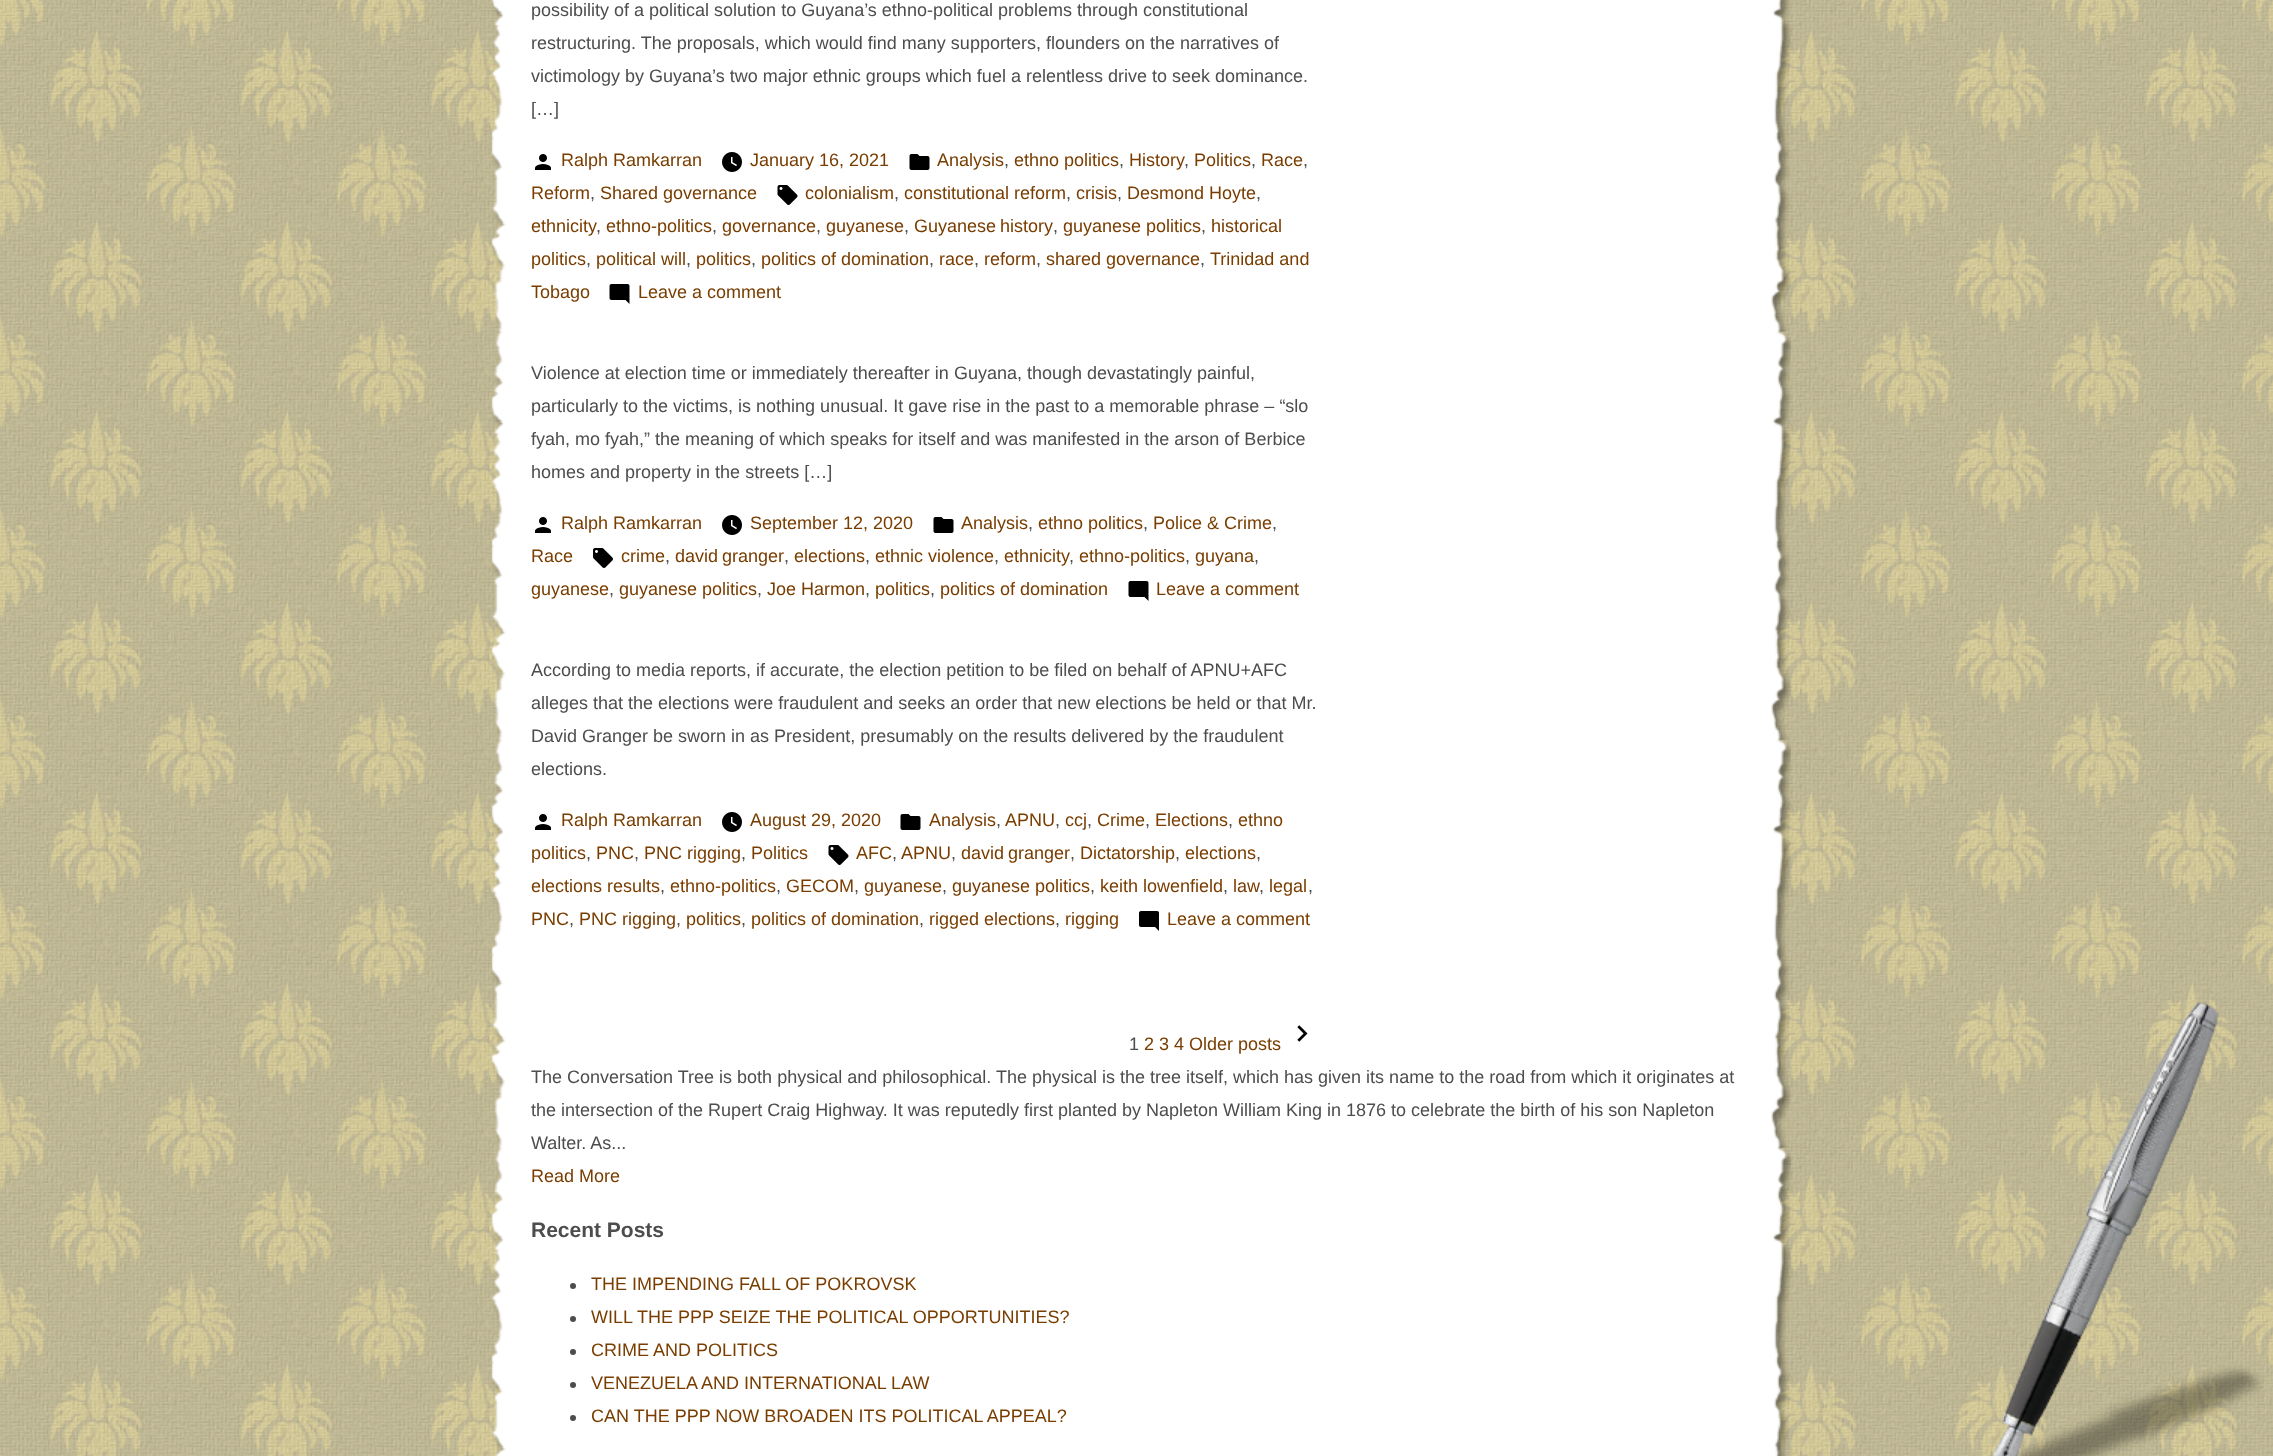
<svg xmlns="http://www.w3.org/2000/svg" width="2273" height="1456" viewBox="0 0 2273 1456">
  <rect width="100%" height="100%" fill="rgb(255,255,255)"/>
  <image x="0" y="0" width="2273" height="1456" href="pic1.png"/>
  <image x="491" y="0" width="1300" height="1456" href="pic2.png"/>
  <g font-family="Liberation Sans" font-size="18" fill="rgb(77,77,77)">
    <text>
      <tspan x="531" y="16">possibility of a political solution to Guyana’s ethno-political problems through constitutional</tspan>
      <tspan x="531" y="49">restructuring. The proposals, which would find many supporters, flounders on the narratives of</tspan>
      <tspan x="531" y="82">victimology by Guyana’s two major ethnic groups which fuel a relentless drive to seek dominance.</tspan>
      <tspan x="531" y="115">[…]</tspan>
    </text>
  </g>
  <image x="909" y="154" width="21" height="16" href="pic3.png"/>
  <text x="937" y="166" font-family="Liberation Sans" font-size="18" fill="rgb(121,61,0)">Analysis</text>
  <text x="1004" y="166" font-family="Liberation Sans" font-size="18" fill="rgb(77,77,77)">,</text>
  <text x="1014" y="166" font-family="Liberation Sans" font-size="18" fill="rgb(121,61,0)">ethno politics</text>
  <text x="1119" y="166" font-family="Liberation Sans" font-size="18" fill="rgb(77,77,77)">,</text>
  <text x="1129" y="166" font-family="Liberation Sans" font-size="18" fill="rgb(121,61,0)">History</text>
  <text x="1184" y="166" font-family="Liberation Sans" font-size="18" fill="rgb(77,77,77)">,</text>
  <text x="1194" y="166" font-family="Liberation Sans" font-size="18" fill="rgb(121,61,0)">Politics</text>
  <text x="1251" y="166" font-family="Liberation Sans" font-size="18" fill="rgb(77,77,77)">,</text>
  <text x="1261" y="166" font-family="Liberation Sans" font-size="18" fill="rgb(121,61,0)">Race</text>
  <text x="1303" y="166" font-family="Liberation Sans" font-size="18" fill="rgb(77,77,77)">,</text>
  <text x="531" y="199" font-family="Liberation Sans" font-size="18" fill="rgb(121,61,0)">Reform</text>
  <text x="590" y="199" font-family="Liberation Sans" font-size="18" fill="rgb(77,77,77)">,</text>
  <text x="600" y="199" font-family="Liberation Sans" font-size="18" fill="rgb(121,61,0)">Shared governance</text>
  <image x="535" y="154" width="16" height="16" href="pic4.png"/>
  <text x="561" y="166" font-family="Liberation Sans" font-size="18" fill="rgb(121,61,0)">Ralph Ramkarran</text>
  <image x="722" y="152" width="20" height="20" href="pic5.png"/>
  <text x="750" y="166" font-family="Liberation Sans" font-size="18" fill="rgb(121,61,0)">January 16, 2021</text>
  <image x="777" y="185" width="21" height="20" href="pic6.png"/>
  <text x="805" y="199" font-family="Liberation Sans" font-size="18" fill="rgb(121,61,0)">colonialism</text>
  <text x="894" y="199" font-family="Liberation Sans" font-size="18" fill="rgb(77,77,77)">,</text>
  <text x="904" y="199" font-family="Liberation Sans" font-size="18" fill="rgb(121,61,0)">constitutional reform</text>
  <text x="1066" y="199" font-family="Liberation Sans" font-size="18" fill="rgb(77,77,77)">,</text>
  <text x="1076" y="199" font-family="Liberation Sans" font-size="18" fill="rgb(121,61,0)">crisis</text>
  <text x="1117" y="199" font-family="Liberation Sans" font-size="18" fill="rgb(77,77,77)">,</text>
  <text x="1127" y="199" font-family="Liberation Sans" font-size="18" fill="rgb(121,61,0)">Desmond Hoyte</text>
  <text x="1256" y="199" font-family="Liberation Sans" font-size="18" fill="rgb(77,77,77)">,</text>
  <text x="531" y="232" font-family="Liberation Sans" font-size="18" fill="rgb(121,61,0)">ethnicity</text>
  <text x="596" y="232" font-family="Liberation Sans" font-size="18" fill="rgb(77,77,77)">,</text>
  <text x="606" y="232" font-family="Liberation Sans" font-size="18" fill="rgb(121,61,0)">ethno-politics</text>
  <text x="712" y="232" font-family="Liberation Sans" font-size="18" fill="rgb(77,77,77)">,</text>
  <text x="722" y="232" font-family="Liberation Sans" font-size="18" fill="rgb(121,61,0)">governance</text>
  <text x="816" y="232" font-family="Liberation Sans" font-size="18" fill="rgb(77,77,77)">,</text>
  <text x="826" y="232" font-family="Liberation Sans" font-size="18" fill="rgb(121,61,0)">guyanese</text>
  <text x="904" y="232" font-family="Liberation Sans" font-size="18" fill="rgb(77,77,77)">,</text>
  <text x="914" y="232" word-spacing="-1" font-family="Liberation Sans" font-size="18" fill="rgb(121,61,0)">Guyanese history</text>
  <text x="1053" y="232" font-family="Liberation Sans" font-size="18" fill="rgb(77,77,77)">,</text>
  <text x="1063" y="232" font-family="Liberation Sans" font-size="18" fill="rgb(121,61,0)">guyanese politics</text>
  <text x="1201" y="232" font-family="Liberation Sans" font-size="18" fill="rgb(77,77,77)">,</text>
  <g font-family="Liberation Sans" font-size="18" fill="rgb(121,61,0)">
    <text x="1211" y="232">historical</text>
    <text x="531" y="265">politics</text>
  </g>
  <text x="586" y="265" font-family="Liberation Sans" font-size="18" fill="rgb(77,77,77)">,</text>
  <text x="596" y="265" font-family="Liberation Sans" font-size="18" fill="rgb(121,61,0)">political will</text>
  <text x="686" y="265" font-family="Liberation Sans" font-size="18" fill="rgb(77,77,77)">,</text>
  <text x="696" y="265" font-family="Liberation Sans" font-size="18" fill="rgb(121,61,0)">politics</text>
  <text x="751" y="265" font-family="Liberation Sans" font-size="18" fill="rgb(77,77,77)">,</text>
  <text x="761" y="265" font-family="Liberation Sans" font-size="18" fill="rgb(121,61,0)">politics of domination</text>
  <text x="929" y="265" font-family="Liberation Sans" font-size="18" fill="rgb(77,77,77)">,</text>
  <text x="939" y="265" font-family="Liberation Sans" font-size="18" fill="rgb(121,61,0)">race</text>
  <text x="974" y="265" font-family="Liberation Sans" font-size="18" fill="rgb(77,77,77)">,</text>
  <text x="984" y="265" font-family="Liberation Sans" font-size="18" fill="rgb(121,61,0)">reform</text>
  <text x="1036" y="265" font-family="Liberation Sans" font-size="18" fill="rgb(77,77,77)">,</text>
  <text x="1046" y="265" font-family="Liberation Sans" font-size="18" fill="rgb(121,61,0)">shared governance</text>
  <text x="1200" y="265" font-family="Liberation Sans" font-size="18" fill="rgb(77,77,77)">,</text>
  <g font-family="Liberation Sans" font-size="18" fill="rgb(121,61,0)">
    <text x="1210" y="265">Trinidad and</text>
    <text x="531" y="298">Tobago</text>
  </g>
  <image x="609" y="284" width="21" height="20" href="pic7.png"/>
  <text x="638" y="298" font-family="Liberation Sans" font-size="18" fill="rgb(121,61,0)">Leave a comment</text>
  <g font-family="Liberation Sans" font-size="18" fill="rgb(77,77,77)">
    <text>
      <tspan x="531" y="379">Violence at election time or immediately thereafter in Guyana, though devastatingly painful,</tspan>
      <tspan x="531" y="412">particularly to the victims, is nothing unusual. It gave rise in the past to a memorable phrase – “slo</tspan>
      <tspan x="531" y="445">fyah, mo fyah,” the meaning of which speaks for itself and was manifested in the arson of Berbice</tspan>
      <tspan x="531" y="478">homes and property in the streets […]</tspan>
    </text>
  </g>
  <image x="933" y="517" width="21" height="16" href="pic3.png"/>
  <text x="961" y="529" font-family="Liberation Sans" font-size="18" fill="rgb(121,61,0)">Analysis</text>
  <text x="1028" y="529" font-family="Liberation Sans" font-size="18" fill="rgb(77,77,77)">,</text>
  <text x="1038" y="529" font-family="Liberation Sans" font-size="18" fill="rgb(121,61,0)">ethno politics</text>
  <text x="1143" y="529" font-family="Liberation Sans" font-size="18" fill="rgb(77,77,77)">,</text>
  <text x="1153" y="529" font-family="Liberation Sans" font-size="18" fill="rgb(121,61,0)">Police &amp; Crime</text>
  <text x="1272" y="529" font-family="Liberation Sans" font-size="18" fill="rgb(77,77,77)">,</text>
  <text x="531" y="562" font-family="Liberation Sans" font-size="18" fill="rgb(121,61,0)">Race</text>
  <image x="535" y="517" width="16" height="16" href="pic4.png"/>
  <text x="561" y="529" font-family="Liberation Sans" font-size="18" fill="rgb(121,61,0)">Ralph Ramkarran</text>
  <image x="722" y="515" width="20" height="20" href="pic5.png"/>
  <text x="750" y="529" font-family="Liberation Sans" font-size="18" fill="rgb(121,61,0)">September 12, 2020</text>
  <image x="593" y="548" width="20" height="20" href="pic8.png"/>
  <text x="621" y="562" font-family="Liberation Sans" font-size="18" fill="rgb(121,61,0)">crime</text>
  <text x="665" y="562" font-family="Liberation Sans" font-size="18" fill="rgb(77,77,77)">,</text>
  <text x="675" y="562" word-spacing="-1" font-family="Liberation Sans" font-size="18" fill="rgb(121,61,0)">david granger</text>
  <text x="784" y="562" font-family="Liberation Sans" font-size="18" fill="rgb(77,77,77)">,</text>
  <text x="794" y="562" font-family="Liberation Sans" font-size="18" fill="rgb(121,61,0)">elections</text>
  <text x="865" y="562" font-family="Liberation Sans" font-size="18" fill="rgb(77,77,77)">,</text>
  <text x="875" y="562" font-family="Liberation Sans" font-size="18" fill="rgb(121,61,0)">ethnic violence</text>
  <text x="994" y="562" font-family="Liberation Sans" font-size="18" fill="rgb(77,77,77)">,</text>
  <text x="1004" y="562" font-family="Liberation Sans" font-size="18" fill="rgb(121,61,0)">ethnicity</text>
  <text x="1069" y="562" font-family="Liberation Sans" font-size="18" fill="rgb(77,77,77)">,</text>
  <text x="1079" y="562" font-family="Liberation Sans" font-size="18" fill="rgb(121,61,0)">ethno-politics</text>
  <text x="1185" y="562" font-family="Liberation Sans" font-size="18" fill="rgb(77,77,77)">,</text>
  <text x="1195" y="562" font-family="Liberation Sans" font-size="18" fill="rgb(121,61,0)">guyana</text>
  <text x="1254" y="562" font-family="Liberation Sans" font-size="18" fill="rgb(77,77,77)">,</text>
  <text x="531" y="595" font-family="Liberation Sans" font-size="18" fill="rgb(121,61,0)">guyanese</text>
  <text x="609" y="595" font-family="Liberation Sans" font-size="18" fill="rgb(77,77,77)">,</text>
  <text x="619" y="595" font-family="Liberation Sans" font-size="18" fill="rgb(121,61,0)">guyanese politics</text>
  <text x="757" y="595" font-family="Liberation Sans" font-size="18" fill="rgb(77,77,77)">,</text>
  <text x="767" y="595" font-family="Liberation Sans" font-size="18" fill="rgb(121,61,0)">Joe Harmon</text>
  <text x="865" y="595" font-family="Liberation Sans" font-size="18" fill="rgb(77,77,77)">,</text>
  <text x="875" y="595" font-family="Liberation Sans" font-size="18" fill="rgb(121,61,0)">politics</text>
  <text x="930" y="595" font-family="Liberation Sans" font-size="18" fill="rgb(77,77,77)">,</text>
  <text x="940" y="595" font-family="Liberation Sans" font-size="18" fill="rgb(121,61,0)">politics of domination</text>
  <image x="1128" y="581" width="21" height="20" href="pic7.png"/>
  <text x="1156" y="595" font-family="Liberation Sans" font-size="18" fill="rgb(121,61,0)">Leave a comment</text>
  <g font-family="Liberation Sans" font-size="18" fill="rgb(77,77,77)">
    <text>
      <tspan x="531" y="676">According to media reports, if accurate, the election petition to be filed on behalf of APNU+AFC</tspan>
      <tspan x="531" y="709">alleges that the elections were fraudulent and seeks an order that new elections be held or that Mr.</tspan>
      <tspan x="531" y="742">David Granger be sworn in as President, presumably on the results delivered by the fraudulent</tspan>
      <tspan x="531" y="775">elections.</tspan>
    </text>
  </g>
  <image x="900" y="814" width="21" height="16" href="pic3.png"/>
  <text x="929" y="826" font-family="Liberation Sans" font-size="18" fill="rgb(121,61,0)">Analysis</text>
  <text x="996" y="826" font-family="Liberation Sans" font-size="18" fill="rgb(77,77,77)">,</text>
  <text x="1005" y="826" font-family="Liberation Sans" font-size="18" fill="rgb(121,61,0)">APNU</text>
  <text x="1055" y="826" font-family="Liberation Sans" font-size="18" fill="rgb(77,77,77)">,</text>
  <text x="1065" y="826" font-family="Liberation Sans" font-size="18" fill="rgb(121,61,0)">ccj</text>
  <text x="1087" y="826" font-family="Liberation Sans" font-size="18" fill="rgb(77,77,77)">,</text>
  <text x="1097" y="826" font-family="Liberation Sans" font-size="18" fill="rgb(121,61,0)">Crime</text>
  <text x="1145" y="826" font-family="Liberation Sans" font-size="18" fill="rgb(77,77,77)">,</text>
  <text x="1155" y="826" font-family="Liberation Sans" font-size="18" fill="rgb(121,61,0)">Elections</text>
  <text x="1228" y="826" font-family="Liberation Sans" font-size="18" fill="rgb(77,77,77)">,</text>
  <g font-family="Liberation Sans" font-size="18" fill="rgb(121,61,0)">
    <text x="1238" y="826">ethno</text>
    <text x="531" y="859">politics</text>
  </g>
  <text x="586" y="859" font-family="Liberation Sans" font-size="18" fill="rgb(77,77,77)">,</text>
  <text x="596" y="859" font-family="Liberation Sans" font-size="18" fill="rgb(121,61,0)">PNC</text>
  <text x="634" y="859" font-family="Liberation Sans" font-size="18" fill="rgb(77,77,77)">,</text>
  <text x="644" y="859" font-family="Liberation Sans" font-size="18" fill="rgb(121,61,0)">PNC rigging</text>
  <text x="741" y="859" font-family="Liberation Sans" font-size="18" fill="rgb(77,77,77)">,</text>
  <text x="751" y="859" font-family="Liberation Sans" font-size="18" fill="rgb(121,61,0)">Politics</text>
  <image x="535" y="814" width="16" height="16" href="pic4.png"/>
  <text x="561" y="826" font-family="Liberation Sans" font-size="18" fill="rgb(121,61,0)">Ralph Ramkarran</text>
  <image x="722" y="812" width="20" height="20" href="pic5.png"/>
  <text x="750" y="826" font-family="Liberation Sans" font-size="18" fill="rgb(121,61,0)">August 29, 2020</text>
  <image x="828" y="845" width="21" height="20" href="pic6.png"/>
  <text x="856" y="859" font-family="Liberation Sans" font-size="18" fill="rgb(121,61,0)">AFC</text>
  <text x="892" y="859" font-family="Liberation Sans" font-size="18" fill="rgb(77,77,77)">,</text>
  <text x="901" y="859" font-family="Liberation Sans" font-size="18" fill="rgb(121,61,0)">APNU</text>
  <text x="951" y="859" font-family="Liberation Sans" font-size="18" fill="rgb(77,77,77)">,</text>
  <text x="961" y="859" word-spacing="-1" font-family="Liberation Sans" font-size="18" fill="rgb(121,61,0)">david granger</text>
  <text x="1070" y="859" font-family="Liberation Sans" font-size="18" fill="rgb(77,77,77)">,</text>
  <text x="1080" y="859" font-family="Liberation Sans" font-size="18" fill="rgb(121,61,0)">Dictatorship</text>
  <text x="1175" y="859" font-family="Liberation Sans" font-size="18" fill="rgb(77,77,77)">,</text>
  <text x="1185" y="859" font-family="Liberation Sans" font-size="18" fill="rgb(121,61,0)">elections</text>
  <text x="1256" y="859" font-family="Liberation Sans" font-size="18" fill="rgb(77,77,77)">,</text>
  <text x="531" y="892" font-family="Liberation Sans" font-size="18" fill="rgb(121,61,0)">elections results</text>
  <text x="660" y="892" font-family="Liberation Sans" font-size="18" fill="rgb(77,77,77)">,</text>
  <text x="670" y="892" font-family="Liberation Sans" font-size="18" fill="rgb(121,61,0)">ethno-politics</text>
  <text x="776" y="892" font-family="Liberation Sans" font-size="18" fill="rgb(77,77,77)">,</text>
  <text x="786" y="892" font-family="Liberation Sans" font-size="18" fill="rgb(121,61,0)">GECOM</text>
  <text x="854" y="892" font-family="Liberation Sans" font-size="18" fill="rgb(77,77,77)">,</text>
  <text x="864" y="892" font-family="Liberation Sans" font-size="18" fill="rgb(121,61,0)">guyanese</text>
  <text x="942" y="892" font-family="Liberation Sans" font-size="18" fill="rgb(77,77,77)">,</text>
  <text x="952" y="892" font-family="Liberation Sans" font-size="18" fill="rgb(121,61,0)">guyanese politics</text>
  <text x="1090" y="892" font-family="Liberation Sans" font-size="18" fill="rgb(77,77,77)">,</text>
  <text x="1100" y="892" font-family="Liberation Sans" font-size="18" fill="rgb(121,61,0)">keith lowenfield</text>
  <text x="1223" y="892" font-family="Liberation Sans" font-size="18" fill="rgb(77,77,77)">,</text>
  <text x="1233" y="892" font-family="Liberation Sans" font-size="18" fill="rgb(121,61,0)">law</text>
  <text x="1259" y="892" font-family="Liberation Sans" font-size="18" fill="rgb(77,77,77)">,</text>
  <text x="1269" y="892" font-family="Liberation Sans" font-size="18" fill="rgb(121,61,0)">legal</text>
  <text x="1308" y="892" font-family="Liberation Sans" font-size="18" fill="rgb(77,77,77)">,</text>
  <text x="531" y="925" font-family="Liberation Sans" font-size="18" fill="rgb(121,61,0)">PNC</text>
  <text x="569" y="925" font-family="Liberation Sans" font-size="18" fill="rgb(77,77,77)">,</text>
  <text x="579" y="925" font-family="Liberation Sans" font-size="18" fill="rgb(121,61,0)">PNC rigging</text>
  <text x="676" y="925" font-family="Liberation Sans" font-size="18" fill="rgb(77,77,77)">,</text>
  <text x="686" y="925" font-family="Liberation Sans" font-size="18" fill="rgb(121,61,0)">politics</text>
  <text x="741" y="925" font-family="Liberation Sans" font-size="18" fill="rgb(77,77,77)">,</text>
  <text x="751" y="925" font-family="Liberation Sans" font-size="18" fill="rgb(121,61,0)">politics of domination</text>
  <text x="919" y="925" font-family="Liberation Sans" font-size="18" fill="rgb(77,77,77)">,</text>
  <text x="929" y="925" font-family="Liberation Sans" font-size="18" fill="rgb(121,61,0)">rigged elections</text>
  <text x="1055" y="925" font-family="Liberation Sans" font-size="18" fill="rgb(77,77,77)">,</text>
  <text x="1065" y="925" font-family="Liberation Sans" font-size="18" fill="rgb(121,61,0)">rigging</text>
  <image x="1139" y="911" width="20" height="20" href="pic9.png"/>
  <text x="1167" y="925" font-family="Liberation Sans" font-size="18" fill="rgb(121,61,0)">Leave a comment</text>
  <image x="1297" y="1025" width="11" height="17" href="pic10.png"/>
  <text x="1129" y="1050" font-family="Liberation Sans" font-size="18" fill="rgb(77,77,77)">1</text>
  <text x="1144" y="1050" font-family="Liberation Sans" font-size="18" fill="rgb(121,61,0)">2 3 4 Older posts</text>
  <g font-family="Liberation Sans" font-size="18" fill="rgb(77,77,77)">
    <text>
      <tspan x="531" y="1083">The Conversation Tree is both physical and philosophical. The physical is the tree itself, which has given its name to the road from which it originates at</tspan>
      <tspan x="531" y="1116">the intersection of the Rupert Craig Highway. It was reputedly first planted by Napleton William King in 1876 to celebrate the birth of his son Napleton</tspan>
      <tspan x="531" y="1149">Walter. As...</tspan>
    </text>
  </g>
  <text x="531" y="1182" font-family="Liberation Sans" font-size="18" fill="rgb(121,61,0)">Read More</text>
  <text x="531" y="1237" font-family="Liberation Sans" font-size="21" font-weight="bold" fill="rgb(77,77,77)">Recent Posts</text>
  <circle cx="573" cy="1286" r="3" fill="rgb(77,77,77)"/>
  <text x="591" y="1290" font-family="Liberation Sans" font-size="18" fill="rgb(121,61,0)">THE IMPENDING FALL OF POKROVSK</text>
  <circle cx="573" cy="1319" r="3" fill="rgb(77,77,77)"/>
  <text x="591" y="1323" font-family="Liberation Sans" font-size="18" fill="rgb(121,61,0)">WILL THE PPP SEIZE THE POLITICAL OPPORTUNITIES?</text>
  <circle cx="573" cy="1352" r="3" fill="rgb(77,77,77)"/>
  <text x="591" y="1356" font-family="Liberation Sans" font-size="18" fill="rgb(121,61,0)">CRIME AND POLITICS</text>
  <circle cx="573" cy="1385" r="3" fill="rgb(77,77,77)"/>
  <text x="591" y="1389" font-family="Liberation Sans" font-size="18" fill="rgb(121,61,0)">VENEZUELA AND INTERNATIONAL LAW</text>
  <circle cx="573" cy="1418" r="3" fill="rgb(77,77,77)"/>
  <text x="591" y="1422" font-family="Liberation Sans" font-size="18" fill="rgb(121,61,0)">CAN THE PPP NOW BROADEN ITS POLITICAL APPEAL?</text>
  <image x="1993" y="1001" width="271" height="455" href="pic11.png"/>
</svg>
